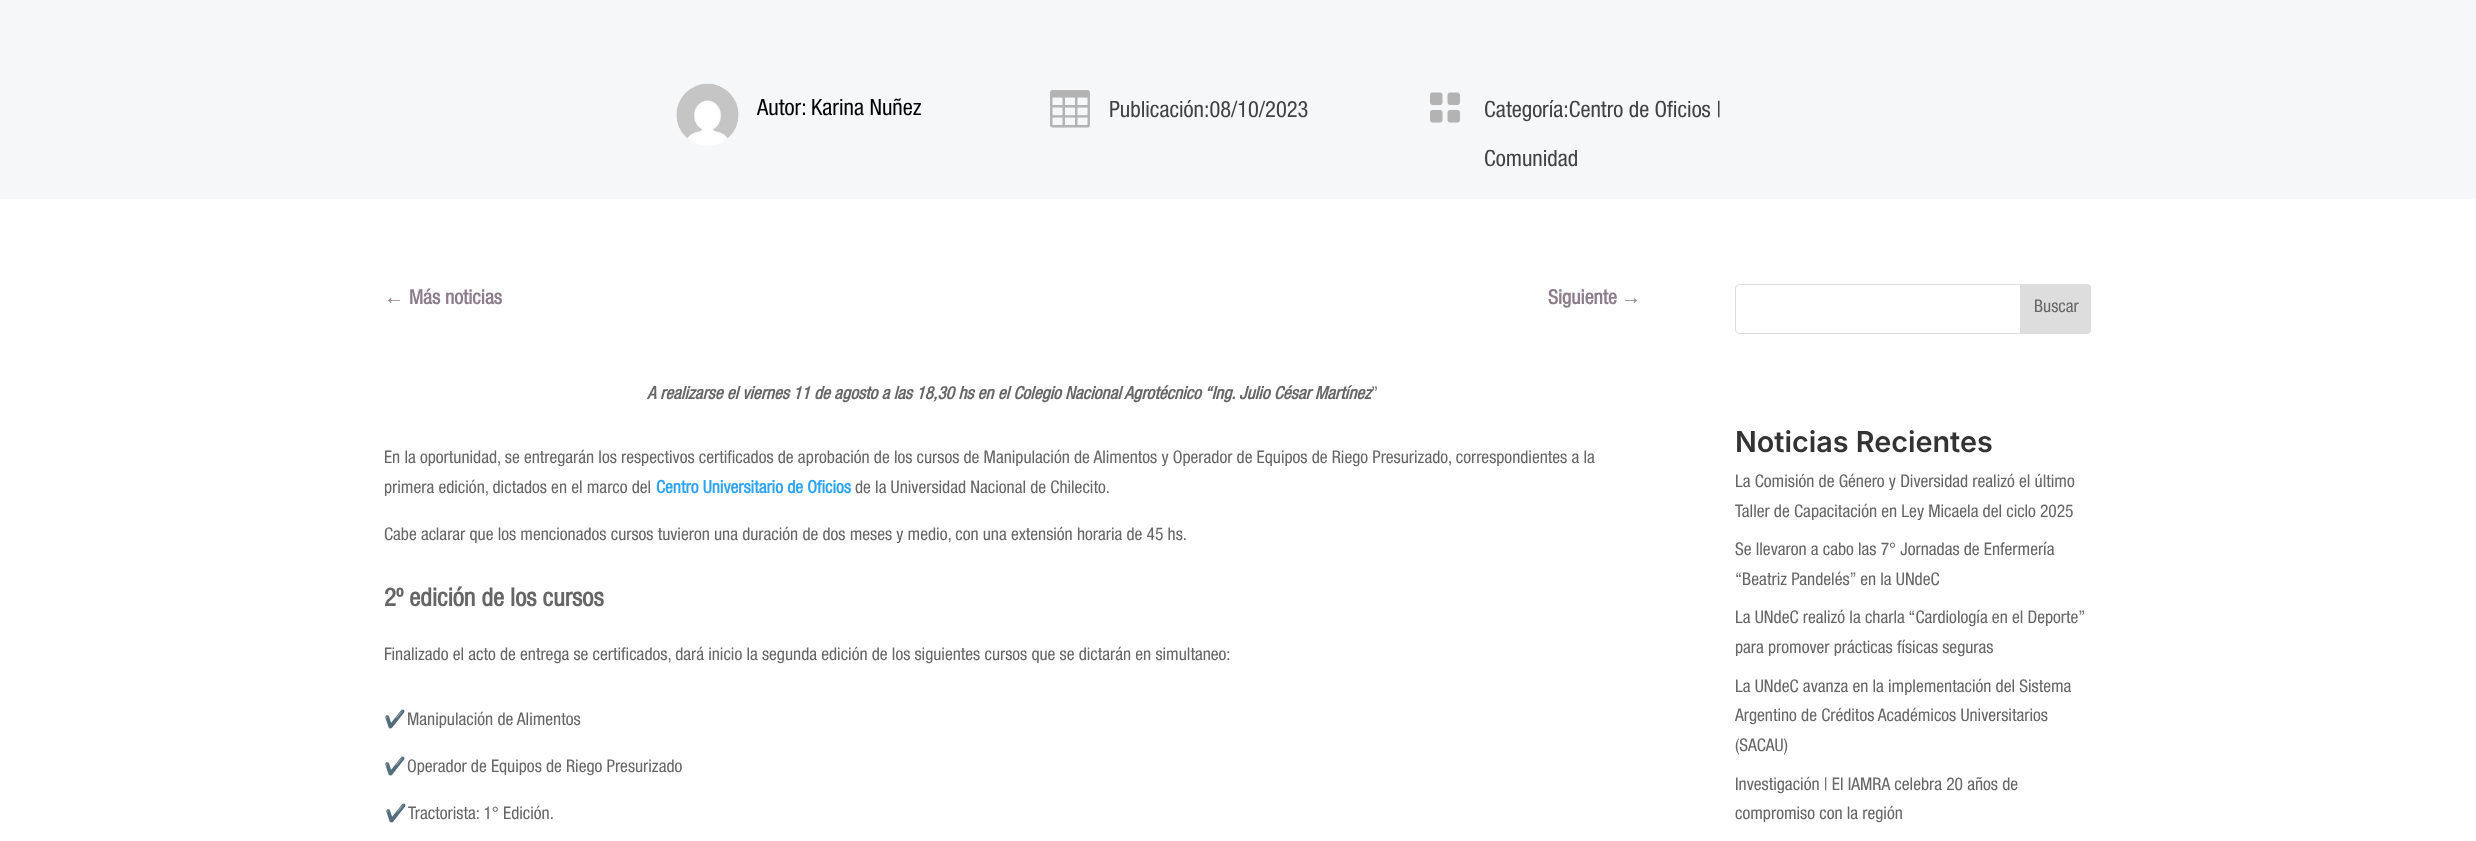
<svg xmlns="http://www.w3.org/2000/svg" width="2476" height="841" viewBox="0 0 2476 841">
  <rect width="100%" height="100%" fill="rgb(255,255,255)"/>
  <rect x="0" y="0" width="2476" height="199" fill="rgb(245,247,249)"/>
  <image x="676" y="83" width="63" height="63" href="pic1.png"/>
  <text x="757" y="115" font-family="Helvetica Neue" font-size="22.5" fill="rgb(0,0,0)">Autor: Karina Nuñez</text>
  <image x="1050" y="90" width="40" height="38" href="pic2.png"/>
  <text x="1109" y="117" font-family="Helvetica Neue" font-size="22.5" fill="rgb(66,66,66)">Publicación:08/10/2023</text>
  <image x="1430" y="92" width="30" height="31" href="pic3.png"/>
  <g font-family="Helvetica Neue" font-size="22.5" fill="rgb(66,66,66)">
    <text x="1484" y="117">Categoría:Centro de Oficios |</text>
    <text x="1484" y="166">Comunidad</text>
  </g>
  <text x="384" y="304" font-family="Liberation Sans" font-size="20" font-weight="bold" fill="rgb(141,125,140)">←</text>
  <g font-family="Helvetica Neue" font-size="20" font-weight="bold" fill="rgb(141,125,140)">
    <text x="409" y="304">Más noticias</text>
    <text x="1548" y="304">Siguiente</text>
  </g>
  <text x="1621" y="304" font-family="Liberation Sans" font-size="20" font-weight="bold" fill="rgb(141,125,140)">→</text>
  <text x="647" y="399" font-family="Helvetica Neue" font-size="17.5" font-weight="bold" font-style="italic" fill="rgb(102,102,102)">A realizarse el viernes 11 de agosto a las 18,30 hs en el Colegio Nacional Agrotécnico “Ing. Julio César Martínez</text>
  <g font-family="Helvetica Neue" font-size="17.5" fill="rgb(102,102,102)">
    <text x="1371" y="399">”</text>
    <text>
      <tspan x="384" y="463">En la oportunidad, se entregarán los respectivos certificados de aprobación de los cursos de Manipulación de Alimentos y Operador de Equipos de Riego Presurizado, correspondientes a la</tspan>
      <tspan x="384" y="493">primera edición, dictados en el marco del</tspan>
    </text>
  </g>
  <text x="656" y="493" font-family="Helvetica Neue" font-size="17.5" font-weight="bold" fill="rgb(46,163,242)">Centro Universitario de Oficios</text>
  <g font-family="Helvetica Neue" font-size="17.5" fill="rgb(102,102,102)">
    <text x="855" y="493">de la Universidad Nacional de Chilecito.</text>
    <text x="384" y="540">Cabe aclarar que los mencionados cursos tuvieron una duración de dos meses y medio, con una extensión horaria de 45 hs.</text>
  </g>
  <text x="384" y="606" font-family="Helvetica Neue" font-size="25" font-weight="bold" fill="rgb(102,102,102)">2º edición de los cursos</text>
  <text x="384" y="660" font-family="Helvetica Neue" font-size="17.5" fill="rgb(102,102,102)">Finalizado el acto de entrega se certificados, dará inicio la segunda edición de los siguientes cursos que se dictarán en simultaneo:</text>
  <text x="384" y="725" font-family="Noto Color Emoji" font-size="17.5" fill="rgb(102,102,102)">✔️</text>
  <text x="407" y="725" font-family="Helvetica Neue" font-size="17.5" fill="rgb(102,102,102)">Manipulación de Alimentos</text>
  <text x="384" y="772" font-family="Noto Color Emoji" font-size="17.5" fill="rgb(102,102,102)">✔️</text>
  <text x="407" y="772" font-family="Helvetica Neue" font-size="17.5" fill="rgb(102,102,102)">Operador de Equipos de Riego Presurizado</text>
  <text x="385" y="819" font-family="Noto Color Emoji" font-size="17.5" fill="rgb(102,102,102)">✔️</text>
  <text x="408" y="819" font-family="Helvetica Neue" font-size="17.5" fill="rgb(102,102,102)">Tractorista: 1° Edición.</text>
  <rect x="1735.5" y="284.5" width="355" height="49" rx="3.5" fill="none" stroke="rgb(221,221,221)"/>
  <path d="M2020.5 284.5H2087C2089 284.5 2090.5 286 2090.5 288V330C2090.5 332 2089 333.5 2087 333.5H2020.5Z" fill="rgb(221,221,221)" stroke="rgb(221,221,221)"/>
  <text x="2034" y="312" font-family="Helvetica Neue" font-size="17.5" fill="rgb(102,102,102)">Buscar</text>
  <text x="1735" y="452" font-family="Inter" font-size="28.75" font-weight="600" fill="rgb(51,51,51)">Noticias Recientes</text>
  <g font-family="Helvetica Neue" font-size="17.5" fill="rgb(102,102,102)">
    <text>
      <tspan x="1735" y="487">La Comisión de Género y Diversidad realizó el último</tspan>
      <tspan x="1735" y="517">Taller de Capacitación en Ley Micaela del ciclo 2025</tspan>
    </text>
    <text>
      <tspan x="1735" y="555">Se llevaron a cabo las 7° Jornadas de Enfermería</tspan>
      <tspan x="1735" y="585">“Beatriz Pandelés” en la UNdeC</tspan>
    </text>
    <text>
      <tspan x="1735" y="623">La UNdeC realizó la charla “Cardiología en el Deporte”</tspan>
      <tspan x="1735" y="653">para promover prácticas físicas seguras</tspan>
    </text>
    <text>
      <tspan x="1735" y="692">La UNdeC avanza en la implementación del Sistema</tspan>
      <tspan x="1735" y="721">Argentino de Créditos Académicos Universitarios</tspan>
      <tspan x="1735" y="751">(SACAU)</tspan>
    </text>
    <text>
      <tspan x="1735" y="790">Investigación | El IAMRA celebra 20 años de</tspan>
      <tspan x="1735" y="819">compromiso con la región</tspan>
    </text>
  </g>
</svg>
